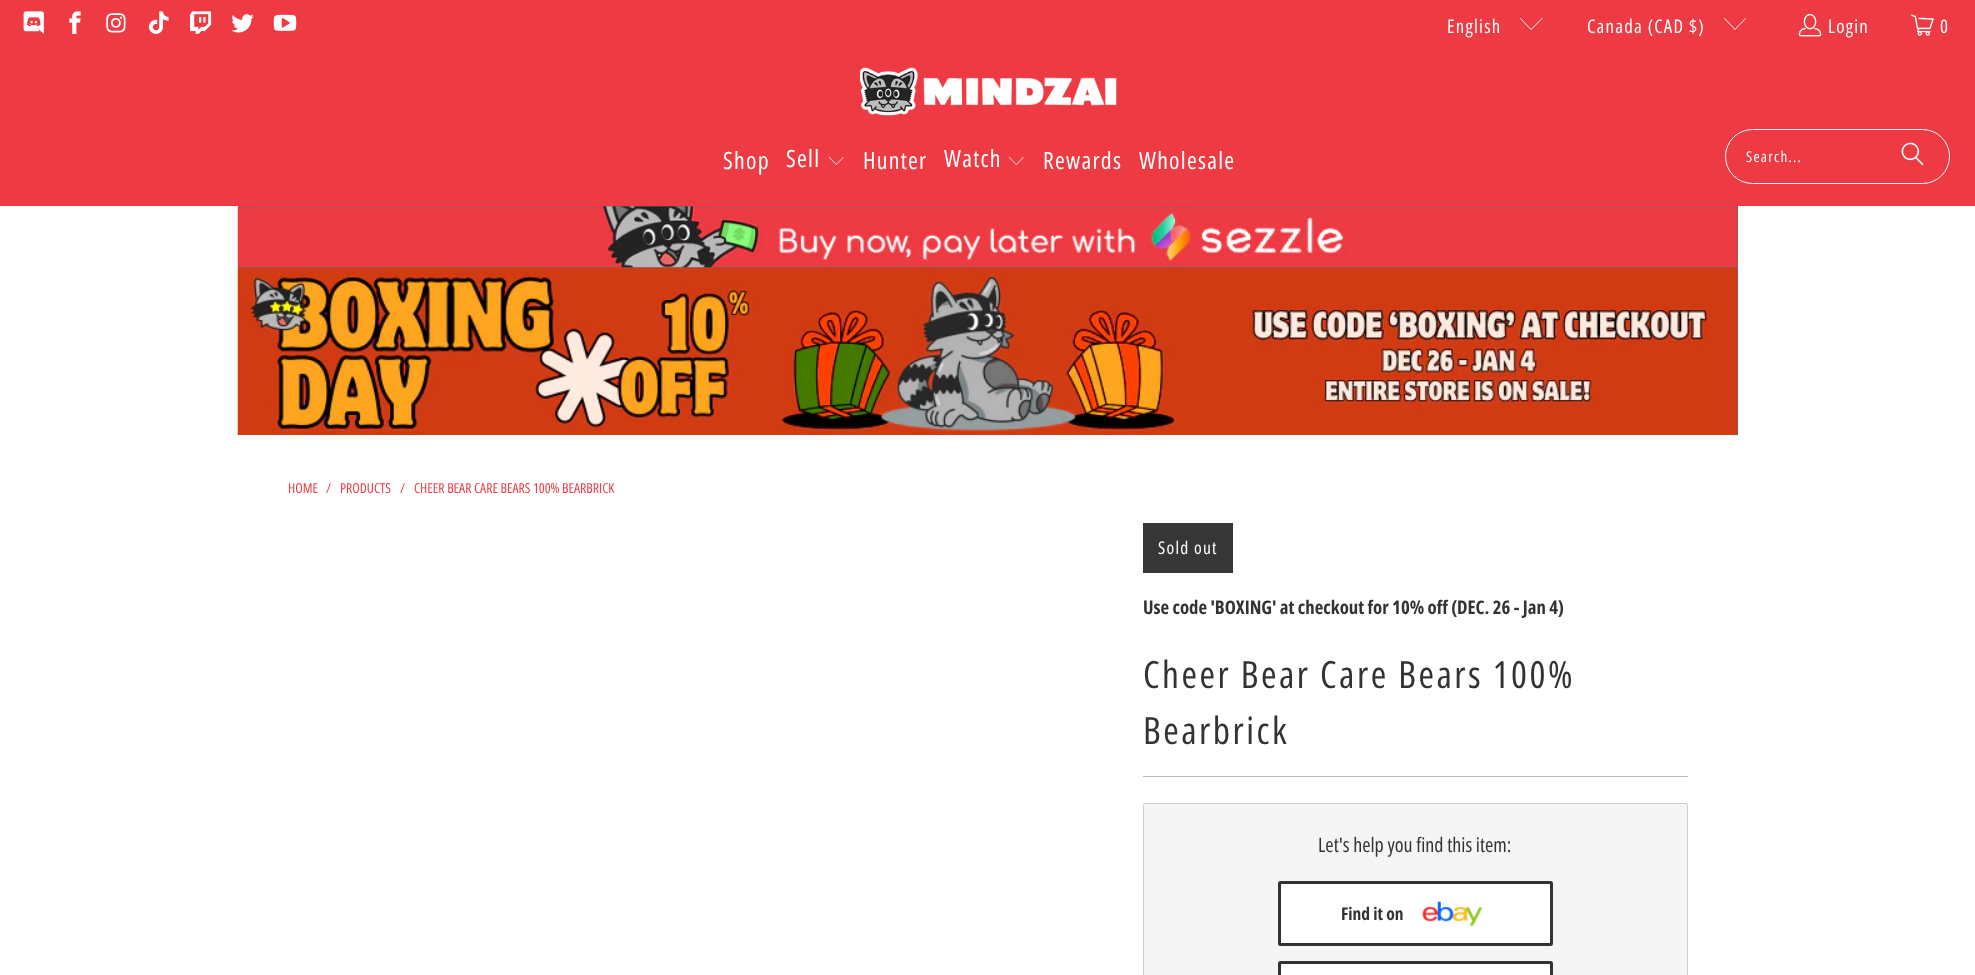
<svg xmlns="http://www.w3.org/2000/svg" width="1975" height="975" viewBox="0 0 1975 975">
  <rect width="100%" height="100%" fill="rgb(255,255,255)"/>
  <rect x="0" y="0" width="1975" height="206" fill="rgb(238,58,67)"/>
  <image x="23" y="11" width="21" height="23" href="pic1.png"/>
  <image x="69" y="11" width="12" height="23" href="pic2.png"/>
  <image x="106" y="13" width="20" height="20" href="pic3.png"/>
  <image x="149" y="11" width="20" height="23" href="pic4.png"/>
  <image x="190" y="11" width="22" height="23" href="pic5.png"/>
  <image x="231" y="14" width="23" height="19" href="pic6.png"/>
  <image x="273" y="14" width="24" height="17" href="pic7.png"/>
  <text x="1447" y="33" font-family="Open Sans Condensed" font-size="18.75" letter-spacing="1.25" fill="rgb(255,255,255)">English</text>
  <path d="M1531 30L1520 18.5L1520.5 18L1531 29L1542 18L1542.5 18.5Z" fill="rgb(255,255,255)"/>
  <text x="1587" y="33" font-family="Open Sans Condensed" font-size="18.75" letter-spacing="1.25" fill="rgb(255,255,255)">Canada (CAD $)</text>
  <path d="M1735 30L1724 18.5L1724.5 18L1735 29L1745.5 18L1746 18.5Z" fill="rgb(255,255,255)"/>
  <image x="1798" y="13" width="24" height="24" href="pic8.png"/>
  <text x="1828" y="33" font-family="Open Sans Condensed" font-size="18.75" letter-spacing="1.25" fill="rgb(255,255,255)">Login</text>
  <image x="1911" y="14" width="23" height="22" href="pic9.png"/>
  <text x="1940" y="33" font-family="Open Sans Condensed" font-size="18.75" letter-spacing="1.25" fill="rgb(255,255,255)">0</text>
  <image x="860" y="67" width="257" height="49" href="pic10.png"/>
  <g font-family="Open Sans Condensed" font-size="23.75" letter-spacing="1.25" fill="rgb(255,255,255)">
    <text x="723" y="169">Shop</text>
    <text x="786" y="167">Sell</text>
  </g>
  <image x="828" y="157" width="16" height="8" href="pic11.png"/>
  <g font-family="Open Sans Condensed" font-size="23.75" letter-spacing="1.25" fill="rgb(255,255,255)">
    <text x="863" y="169">Hunter</text>
    <text x="944" y="167">Watch</text>
  </g>
  <image x="1008" y="157" width="16" height="8" href="pic11.png"/>
  <g font-family="Open Sans Condensed" font-size="23.75" letter-spacing="1.25" fill="rgb(255,255,255)">
    <text x="1043" y="169">Rewards</text>
    <text x="1139" y="169">Wholesale</text>
  </g>
  <rect x="1725.5" y="129.5" width="224" height="54" rx="27" fill="none" stroke="rgb(255,255,255)"/>
  <text x="1746" y="162" font-family="Open Sans Condensed" font-size="15" letter-spacing="1.25" fill="rgb(255,255,255)">Search...</text>
  <image x="1901" y="142" width="23" height="24" href="pic12.png"/>
  <rect x="238" y="206" width="1500" height="62" fill="rgb(102,102,102)"/>
  <image x="237" y="206" width="1501" height="62" href="pic13.png"/>
  <rect x="1737" y="268" width="1" height="167" fill="rgb(102,102,102)"/>
  <image x="237" y="267" width="1501" height="168" href="pic14.png"/>
  <g font-family="Open Sans Condensed" font-size="13.75" fill="rgb(238,58,67)">
    <text x="288" y="493">HOME</text>
    <text x="326" y="493">/</text>
    <text x="340" y="493">PRODUCTS</text>
    <text x="400" y="493">/</text>
    <text x="414" y="493">CHEER BEAR CARE BEARS 100% BEARBRICK</text>
  </g>
  <rect x="1143" y="523" width="90" height="50" fill="rgb(54,54,54)"/>
  <text x="1158" y="554" font-family="Open Sans Condensed" font-size="17.5" letter-spacing="1.25" fill="rgb(255,255,255)">Sold out</text>
  <text x="1143" y="614" font-family="Open Sans Condensed" font-size="18.75" font-weight="bold" fill="rgb(51,51,51)">Use code 'BOXING' at checkout for 10% off (DEC. 26 - Jan 4)</text>
  <g font-family="Open Sans Condensed" font-size="37.5" letter-spacing="2.5" fill="rgb(51,51,51)">
    <text>
      <tspan x="1143" y="688">Cheer Bear Care Bears 100%</tspan>
      <tspan x="1143" y="744">Bearbrick</tspan>
    </text>
  </g>
  <rect x="1143" y="776" width="545" height="1" fill="rgb(186,186,186)"/>
  <rect x="1143.5" y="803.5" width="544" height="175" rx="2" fill="rgb(245,245,245)" stroke="rgb(204,204,204)"/>
  <text x="1318" y="852" font-family="Open Sans Condensed" font-size="20" fill="rgb(51,51,51)">Let's help you find this item:</text>
  <rect x="1279.5" y="882.5" width="272" height="62" rx="1" fill="rgb(255,255,255)" stroke="rgb(51,51,51)" stroke-width="3"/>
  <text x="1341" y="920" font-family="Open Sans Condensed" font-size="17.5" font-weight="bold" fill="rgb(51,51,51)">Find it on</text>
  <image x="1422" y="901" width="61" height="26" href="pic15.png"/>
  <rect x="1279.5" y="962.5" width="272" height="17" rx="1" fill="rgb(255,255,255)" stroke="rgb(51,51,51)" stroke-width="3"/>
</svg>
